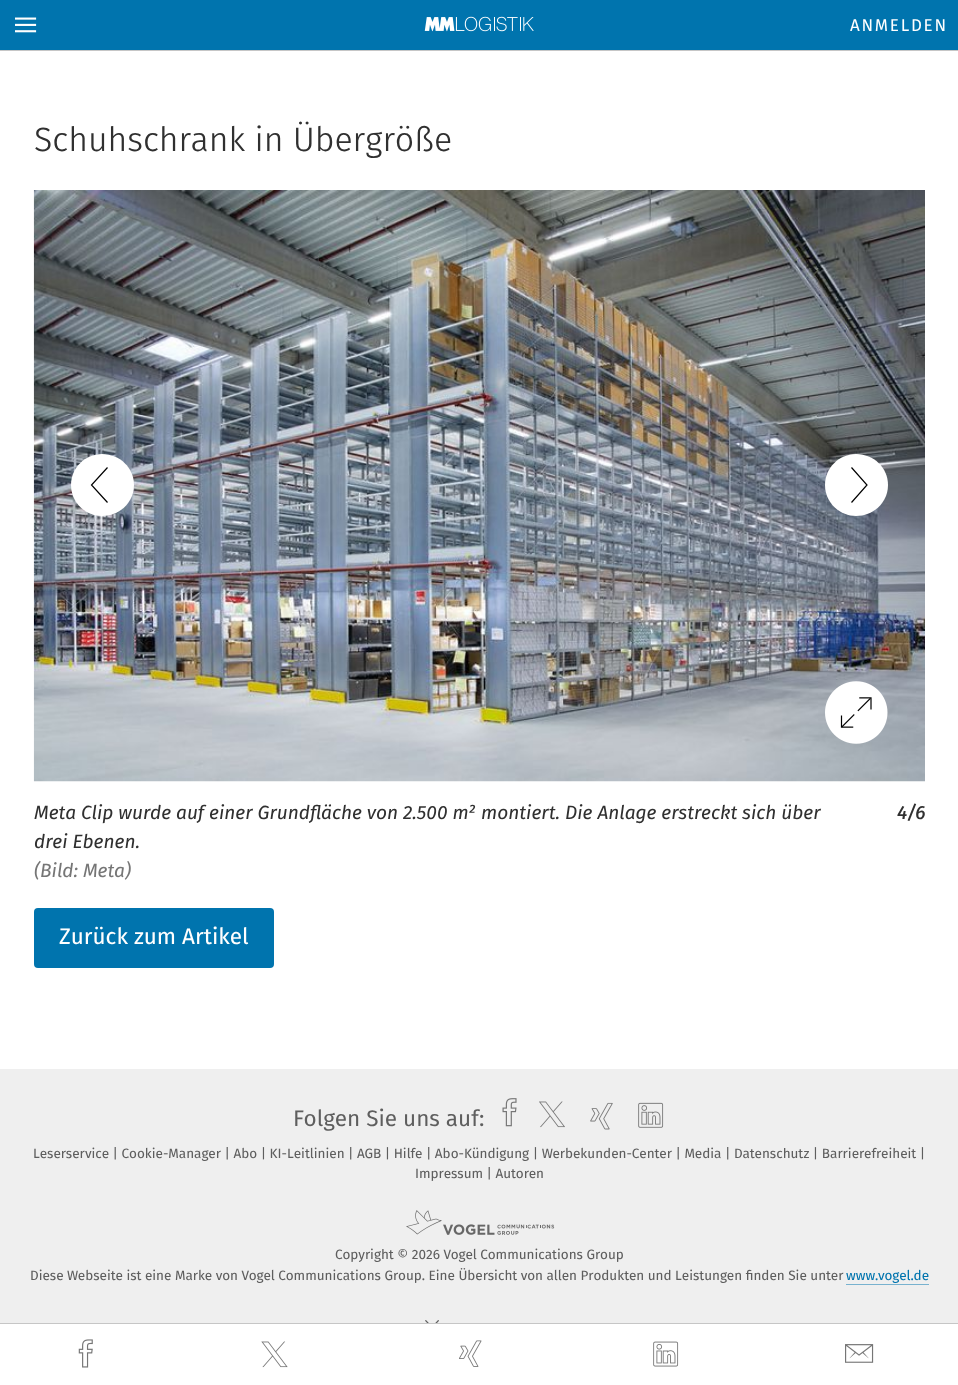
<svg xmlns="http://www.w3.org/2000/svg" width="958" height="1385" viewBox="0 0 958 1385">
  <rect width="100%" height="100%" fill="rgb(255,255,255)"/>
  <rect x="0" y="50" width="958" height="1" fill="rgb(198,198,198)"/>
  <rect x="0" y="0" width="958" height="50" fill="rgb(0,116,174)"/>
  <image x="15" y="17" width="22" height="16" href="pic1.png"/>
  <image x="424" y="16" width="110" height="16" href="pic2.png"/>
  <text x="850" y="31" font-family="'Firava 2'" font-size="17" letter-spacing="1.75" fill="rgb(255,255,255)">ANMELDEN</text>
  <text x="34" y="151" font-family="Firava" font-size="33.75" font-weight="300" fill="rgb(48,48,48)">Schuhschrank in Übergröße</text>
  <image x="33" y="190" width="892" height="592" href="pic3.png"/>
  <path d="M102 516C120 516 134 502 134 485C134 468 120 454 102 454C85 454 71 468 71 485C71 502 85 516 102 516" fill="rgb(255,255,255)"/>
  <path d="M107.5 467.5L91.5 485L107.5 502.5" fill="none" stroke="rgb(0,0,0)" stroke-width="1.2"/>
  <path d="M856 454C839 454 825 468 825 485C825 502 839 516 856 516C874 516 888 502 888 485C888 468 874 454 856 454" fill="rgb(255,255,255)"/>
  <path d="M851.5 502.5L867 485L851.5 467.5" fill="none" stroke="rgb(0,0,0)" stroke-width="1.2"/>
  <image x="825" y="681" width="63" height="63" href="pic4.png"/>
  <g font-family="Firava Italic" font-size="19.1" font-style="italic" fill="rgb(48,48,48)">
    <text>
      <tspan x="34" y="819">Meta Clip wurde auf einer Grundfläche von 2.500 m² montiert. Die Anlage erstreckt sich über</tspan>
      <tspan x="34" y="848">drei Ebenen.</tspan>
    </text>
  </g>
  <text x="34" y="877" font-family="Firava Italic" font-size="19.1" font-style="italic" fill="rgb(118,118,118)">(Bild: Meta)</text>
  <text x="897" y="819" font-family="Firava Italic" font-size="19.1" font-weight="500" font-style="italic" fill="rgb(48,48,48)">4/6</text>
  <rect x="34" y="908" width="240" height="60" rx="4" fill="rgb(0,116,174)"/>
  <text x="59" y="944" font-family="Firava" font-size="22.5" fill="rgb(255,255,255)">Zurück zum Artikel</text>
  <rect x="0" y="1323" width="958" height="1" fill="rgb(198,198,198)"/>
  <image x="78" y="1339" width="15" height="29" href="pic5.png"/>
  <image x="261" y="1341" width="27" height="27" href="pic6.png"/>
  <image x="459" y="1340" width="23" height="27" href="pic7.png"/>
  <image x="653" y="1341" width="26" height="26" href="pic8.png"/>
  <image x="845" y="1344" width="29" height="19" href="pic9.png"/>
  <rect x="0" y="1069" width="958" height="254" fill="rgb(239,239,239)"/>
  <text x="293" y="1126" font-family="'Firava 2'" font-size="22.5" fill="rgb(94,94,94)">Folgen Sie uns auf:</text>
  <image x="502" y="1098" width="15" height="29" href="pic10.png"/>
  <image x="539" y="1101" width="26" height="27" href="pic11.png"/>
  <image x="590" y="1102" width="23" height="28" href="pic12.png"/>
  <image x="638" y="1102" width="26" height="26" href="pic13.png"/>
  <g font-family="Firava" font-size="13.5" fill="rgb(94,94,94)">
    <text x="33" y="1158">Leserservice | Cookie-Manager | Abo | KI-Leitlinien | AGB | Hilfe | Abo-Kündigung | Werbekunden-Center | Media | Datenschutz | Barrierefreiheit |</text>
    <text x="415" y="1178">Impressum | Autoren</text>
  </g>
  <image x="406" y="1210" width="149" height="25" href="pic14.png"/>
  <g font-family="Firava" font-size="13.5" fill="rgb(94,94,94)">
    <text x="335" y="1259">Copyright © 2026 Vogel Communications Group</text>
    <text x="30" y="1280">Diese Webseite ist eine Marke von Vogel Communications Group. Eine Übersicht von allen Produkten und Leistungen finden Sie unter</text>
  </g>
  <text x="846" y="1280" font-family="Firava" font-size="13.5" fill="rgb(0,116,174)">www.vogel.de</text>
  <rect x="846" y="1284" width="83" height="1" fill="rgb(120,178,207)"/>
  <image x="425" y="1320" width="14" height="3" href="pic15.png"/>
</svg>
